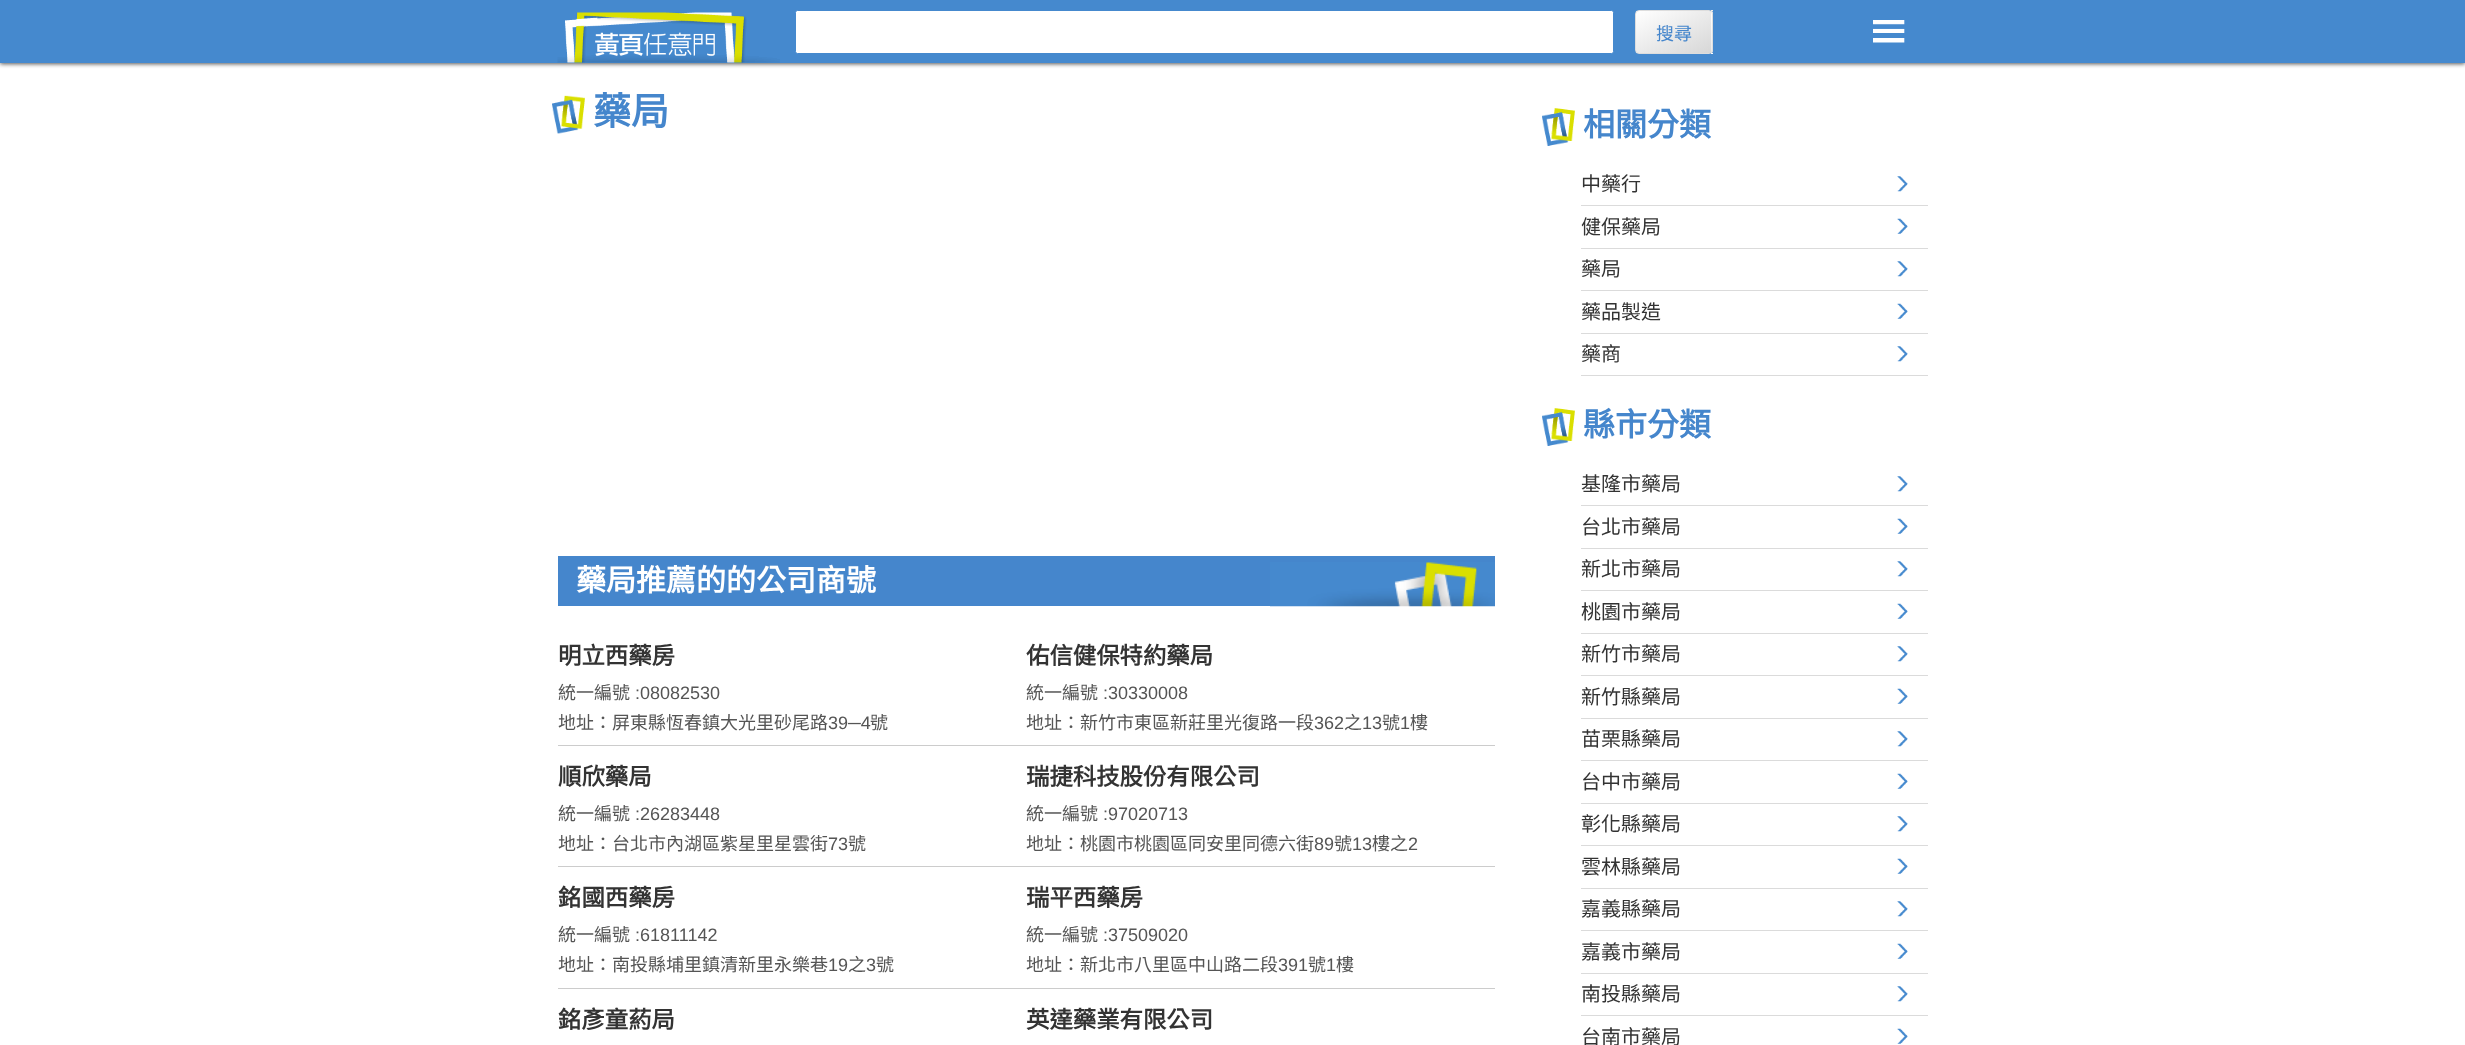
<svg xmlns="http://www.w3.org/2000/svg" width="2465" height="1045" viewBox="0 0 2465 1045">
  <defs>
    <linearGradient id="g1" gradientUnits="userSpaceOnUse" x1="1731" y1="-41" x2="1766" y2="22"><stop offset="0" stop-color="rgb(255,255,255)"/><stop offset="1" stop-color="rgb(215,215,215)"/></linearGradient>
    <linearGradient id="g2" gradientUnits="userSpaceOnUse" x1="1656" y1="0.2" x2="1691" y2="64"><stop offset="0" stop-color="rgb(255,255,255)"/><stop offset="1" stop-color="rgb(215,215,215)"/></linearGradient>
    <clipPath id="clip1"><rect x="1635" y="10" width="78" height="44" rx="4"/></clipPath>
    <linearGradient id="g3" gradientUnits="userSpaceOnUse" x1="1731" y1="0.2" x2="1766" y2="64"><stop offset="0" stop-color="rgb(255,255,255)"/><stop offset="1" stop-color="rgb(215,215,215)"/></linearGradient>
    <linearGradient id="g4" gradientUnits="userSpaceOnUse" x1="1731" y1="41" x2="1766" y2="105"><stop offset="0" stop-color="rgb(255,255,255)"/><stop offset="1" stop-color="rgb(215,215,215)"/></linearGradient>
  </defs>
  <rect width="100%" height="100%" fill="rgb(255,255,255)"/>
  <rect x="0" y="1" width="2465" height="63" fill="rgb(85,85,85)" filter="blur(2px)"/>
  <rect x="0" y="0" width="2465" height="63" fill="rgb(69,137,206)"/>
  <image x="557" y="12" width="223" height="51" href="pic1.png"/>
  <rect x="795.5" y="10.5" width="818" height="43" rx="2" fill="rgb(255,255,255)" stroke="rgb(69,137,206)"/>
  <rect x="1711" y="10" width="2" height="1" fill="url(#g1)"/>
  <rect x="1636" y="11" width="75" height="42" fill="url(#g2)"/>
  <g clip-path="url(#clip1)">
    <rect x="1711" y="11" width="2" height="42" fill="url(#g3)"/>
  </g>
  <rect x="1711" y="53" width="2" height="1" fill="url(#g4)"/>
  <rect x="1635.5" y="10.5" width="77" height="43" rx="3.5" fill="none" stroke="rgb(221,221,221)"/>
  <text x="1656" y="40" font-family="Noto Sans CJK TC" font-size="18" fill="rgb(69,134,204)">搜尋</text>
  <image x="1873" y="20" width="32" height="23" href="pic2.png"/>
  <image x="552" y="95" width="33" height="39" href="pic3.png"/>
  <text x="593" y="125" font-family="Noto Sans CJK TC" font-size="38" font-weight="bold" fill="rgb(69,134,204)">藥局</text>
  <rect x="558" y="556" width="937" height="50" fill="rgb(69,134,204)"/>
  <image x="1270" y="562" width="225" height="45" href="pic4.png"/>
  <text x="576" y="591" font-family="Noto Sans CJK TC" font-size="30" font-weight="bold" fill="rgb(255,255,255)">藥局推薦的的公司商號</text>
  <rect x="558" y="745" width="937" height="1" fill="rgb(204,204,204)"/>
  <text x="558" y="664" font-family="Noto Sans CJK TC" font-size="23.4" font-weight="bold" fill="rgb(51,51,51)">明立西藥房</text>
  <text x="558" y="699" font-family="Noto Sans CJK TC" font-size="18" fill="rgb(85,85,85)">統一編號</text>
  <text x="635" y="699" font-family="Liberation Sans" font-size="18" fill="rgb(85,85,85)">:08082530</text>
  <text x="558" y="729" font-family="Noto Sans CJK TC" font-size="18" fill="rgb(85,85,85)">地址：屏東縣恆春鎮大光里砂尾路</text>
  <text x="828" y="729" font-family="Liberation Sans" font-size="18" fill="rgb(85,85,85)">39─4</text>
  <text x="870" y="729" font-family="Noto Sans CJK TC" font-size="18" fill="rgb(85,85,85)">號</text>
  <text x="1026" y="664" font-family="Noto Sans CJK TC" font-size="23.4" font-weight="bold" fill="rgb(51,51,51)">佑信健保特約藥局</text>
  <text x="1026" y="699" font-family="Noto Sans CJK TC" font-size="18" fill="rgb(85,85,85)">統一編號</text>
  <text x="1103" y="699" font-family="Liberation Sans" font-size="18" fill="rgb(85,85,85)">:30330008</text>
  <text x="1026" y="729" font-family="Noto Sans CJK TC" font-size="18" fill="rgb(85,85,85)">地址：新竹市東區新莊里光復路一段</text>
  <text x="1314" y="729" font-family="Liberation Sans" font-size="18" fill="rgb(85,85,85)">362</text>
  <text x="1344" y="729" font-family="Noto Sans CJK TC" font-size="18" fill="rgb(85,85,85)">之</text>
  <text x="1362" y="729" font-family="Liberation Sans" font-size="18" fill="rgb(85,85,85)">13</text>
  <text x="1382" y="729" font-family="Noto Sans CJK TC" font-size="18" fill="rgb(85,85,85)">號</text>
  <text x="1400" y="729" font-family="Liberation Sans" font-size="18" fill="rgb(85,85,85)">1</text>
  <text x="1410" y="729" font-family="Noto Sans CJK TC" font-size="18" fill="rgb(85,85,85)">樓</text>
  <rect x="558" y="866" width="937" height="1" fill="rgb(204,204,204)"/>
  <text x="558" y="785" font-family="Noto Sans CJK TC" font-size="23.4" font-weight="bold" fill="rgb(51,51,51)">順欣藥局</text>
  <text x="558" y="820" font-family="Noto Sans CJK TC" font-size="18" fill="rgb(85,85,85)">統一編號</text>
  <text x="635" y="820" font-family="Liberation Sans" font-size="18" fill="rgb(85,85,85)">:26283448</text>
  <text x="558" y="850" font-family="Noto Sans CJK TC" font-size="18" fill="rgb(85,85,85)">地址：台北市內湖區紫星里星雲街</text>
  <text x="828" y="850" font-family="Liberation Sans" font-size="18" fill="rgb(85,85,85)">73</text>
  <text x="848" y="850" font-family="Noto Sans CJK TC" font-size="18" fill="rgb(85,85,85)">號</text>
  <text x="1026" y="785" font-family="Noto Sans CJK TC" font-size="23.4" font-weight="bold" fill="rgb(51,51,51)">瑞捷科技股份有限公司</text>
  <text x="1026" y="820" font-family="Noto Sans CJK TC" font-size="18" fill="rgb(85,85,85)">統一編號</text>
  <text x="1103" y="820" font-family="Liberation Sans" font-size="18" fill="rgb(85,85,85)">:97020713</text>
  <text x="1026" y="850" font-family="Noto Sans CJK TC" font-size="18" fill="rgb(85,85,85)">地址：桃園市桃園區同安里同德六街</text>
  <text x="1314" y="850" font-family="Liberation Sans" font-size="18" fill="rgb(85,85,85)">89</text>
  <text x="1334" y="850" font-family="Noto Sans CJK TC" font-size="18" fill="rgb(85,85,85)">號</text>
  <text x="1352" y="850" font-family="Liberation Sans" font-size="18" fill="rgb(85,85,85)">13</text>
  <text x="1372" y="850" font-family="Noto Sans CJK TC" font-size="18" fill="rgb(85,85,85)">樓之</text>
  <text x="1408" y="850" font-family="Liberation Sans" font-size="18" fill="rgb(85,85,85)">2</text>
  <rect x="558" y="988" width="937" height="1" fill="rgb(204,204,204)"/>
  <text x="558" y="906" font-family="Noto Sans CJK TC" font-size="23.4" font-weight="bold" fill="rgb(51,51,51)">銘國西藥房</text>
  <text x="558" y="941" font-family="Noto Sans CJK TC" font-size="18" fill="rgb(85,85,85)">統一編號</text>
  <text x="635" y="941" font-family="Liberation Sans" font-size="18" fill="rgb(85,85,85)">:61811142</text>
  <text x="558" y="971" font-family="Noto Sans CJK TC" font-size="18" fill="rgb(85,85,85)">地址：南投縣埔里鎮清新里永樂巷</text>
  <text x="828" y="971" font-family="Liberation Sans" font-size="18" fill="rgb(85,85,85)">19</text>
  <text x="848" y="971" font-family="Noto Sans CJK TC" font-size="18" fill="rgb(85,85,85)">之</text>
  <text x="866" y="971" font-family="Liberation Sans" font-size="18" fill="rgb(85,85,85)">3</text>
  <text x="876" y="971" font-family="Noto Sans CJK TC" font-size="18" fill="rgb(85,85,85)">號</text>
  <text x="1026" y="906" font-family="Noto Sans CJK TC" font-size="23.4" font-weight="bold" fill="rgb(51,51,51)">瑞平西藥房</text>
  <text x="1026" y="941" font-family="Noto Sans CJK TC" font-size="18" fill="rgb(85,85,85)">統一編號</text>
  <text x="1103" y="941" font-family="Liberation Sans" font-size="18" fill="rgb(85,85,85)">:37509020</text>
  <text x="1026" y="971" font-family="Noto Sans CJK TC" font-size="18" fill="rgb(85,85,85)">地址：新北市八里區中山路二段</text>
  <text x="1278" y="971" font-family="Liberation Sans" font-size="18" fill="rgb(85,85,85)">391</text>
  <text x="1308" y="971" font-family="Noto Sans CJK TC" font-size="18" fill="rgb(85,85,85)">號</text>
  <text x="1326" y="971" font-family="Liberation Sans" font-size="18" fill="rgb(85,85,85)">1</text>
  <text x="1336" y="971" font-family="Noto Sans CJK TC" font-size="18" fill="rgb(85,85,85)">樓</text>
  <g font-family="Noto Sans CJK TC" font-size="23.4" font-weight="bold" fill="rgb(51,51,51)">
    <text x="558" y="1028">銘彥童葯局</text>
    <text x="1026" y="1028">英達藥業有限公司</text>
  </g>
  <image x="1542" y="108" width="33" height="38" href="pic5.png"/>
  <text x="1583" y="136" font-family="Noto Sans CJK TC" font-size="32" font-weight="bold" fill="rgb(69,134,204)">相關分類</text>
  <image x="1897" y="176" width="11" height="16" href="pic6.png"/>
  <rect x="1581" y="205" width="347" height="1" fill="rgb(219,219,219)"/>
  <text x="1581" y="191" font-family="Noto Sans CJK TC" font-size="20" fill="rgb(51,51,51)">中藥行</text>
  <image x="1897" y="218" width="11" height="16" href="pic7.png"/>
  <rect x="1581" y="248" width="347" height="1" fill="rgb(219,219,219)"/>
  <text x="1581" y="234" font-family="Noto Sans CJK TC" font-size="20" fill="rgb(51,51,51)">健保藥局</text>
  <image x="1897" y="261" width="11" height="16" href="pic6.png"/>
  <rect x="1581" y="290" width="347" height="1" fill="rgb(219,219,219)"/>
  <text x="1581" y="276" font-family="Noto Sans CJK TC" font-size="20" fill="rgb(51,51,51)">藥局</text>
  <image x="1897" y="303" width="11" height="16" href="pic7.png"/>
  <rect x="1581" y="333" width="347" height="1" fill="rgb(219,219,219)"/>
  <text x="1581" y="319" font-family="Noto Sans CJK TC" font-size="20" fill="rgb(51,51,51)">藥品製造</text>
  <image x="1897" y="346" width="11" height="16" href="pic6.png"/>
  <rect x="1581" y="375" width="347" height="1" fill="rgb(219,219,219)"/>
  <text x="1581" y="361" font-family="Noto Sans CJK TC" font-size="20" fill="rgb(51,51,51)">藥商</text>
  <image x="1542" y="408" width="33" height="38" href="pic5.png"/>
  <text x="1583" y="436" font-family="Noto Sans CJK TC" font-size="32" font-weight="bold" fill="rgb(69,134,204)">縣市分類</text>
  <image x="1897" y="476" width="11" height="16" href="pic6.png"/>
  <rect x="1581" y="505" width="347" height="1" fill="rgb(219,219,219)"/>
  <text x="1581" y="491" font-family="Noto Sans CJK TC" font-size="20" fill="rgb(51,51,51)">基隆市藥局</text>
  <image x="1897" y="518" width="11" height="16" href="pic8.png"/>
  <rect x="1581" y="548" width="347" height="1" fill="rgb(219,219,219)"/>
  <text x="1581" y="534" font-family="Noto Sans CJK TC" font-size="20" fill="rgb(51,51,51)">台北市藥局</text>
  <image x="1897" y="561" width="11" height="16" href="pic6.png"/>
  <rect x="1581" y="590" width="347" height="1" fill="rgb(219,219,219)"/>
  <text x="1581" y="576" font-family="Noto Sans CJK TC" font-size="20" fill="rgb(51,51,51)">新北市藥局</text>
  <image x="1897" y="603" width="11" height="16" href="pic7.png"/>
  <rect x="1581" y="633" width="347" height="1" fill="rgb(219,219,219)"/>
  <text x="1581" y="619" font-family="Noto Sans CJK TC" font-size="20" fill="rgb(51,51,51)">桃園市藥局</text>
  <image x="1897" y="646" width="11" height="16" href="pic6.png"/>
  <rect x="1581" y="675" width="347" height="1" fill="rgb(219,219,219)"/>
  <text x="1581" y="661" font-family="Noto Sans CJK TC" font-size="20" fill="rgb(51,51,51)">新竹市藥局</text>
  <image x="1897" y="688" width="11" height="16" href="pic9.png"/>
  <rect x="1581" y="718" width="347" height="1" fill="rgb(219,219,219)"/>
  <text x="1581" y="704" font-family="Noto Sans CJK TC" font-size="20" fill="rgb(51,51,51)">新竹縣藥局</text>
  <image x="1897" y="731" width="11" height="16" href="pic6.png"/>
  <rect x="1581" y="760" width="347" height="1" fill="rgb(219,219,219)"/>
  <text x="1581" y="746" font-family="Noto Sans CJK TC" font-size="20" fill="rgb(51,51,51)">苗栗縣藥局</text>
  <image x="1897" y="773" width="11" height="16" href="pic7.png"/>
  <rect x="1581" y="803" width="347" height="1" fill="rgb(219,219,219)"/>
  <text x="1581" y="789" font-family="Noto Sans CJK TC" font-size="20" fill="rgb(51,51,51)">台中市藥局</text>
  <image x="1897" y="816" width="11" height="16" href="pic6.png"/>
  <rect x="1581" y="845" width="347" height="1" fill="rgb(219,219,219)"/>
  <text x="1581" y="831" font-family="Noto Sans CJK TC" font-size="20" fill="rgb(51,51,51)">彰化縣藥局</text>
  <image x="1897" y="858" width="11" height="16" href="pic7.png"/>
  <rect x="1581" y="888" width="347" height="1" fill="rgb(219,219,219)"/>
  <text x="1581" y="874" font-family="Noto Sans CJK TC" font-size="20" fill="rgb(51,51,51)">雲林縣藥局</text>
  <image x="1897" y="901" width="11" height="16" href="pic6.png"/>
  <rect x="1581" y="930" width="347" height="1" fill="rgb(219,219,219)"/>
  <text x="1581" y="916" font-family="Noto Sans CJK TC" font-size="20" fill="rgb(51,51,51)">嘉義縣藥局</text>
  <image x="1897" y="943" width="11" height="16" href="pic9.png"/>
  <rect x="1581" y="973" width="347" height="1" fill="rgb(219,219,219)"/>
  <text x="1581" y="959" font-family="Noto Sans CJK TC" font-size="20" fill="rgb(51,51,51)">嘉義市藥局</text>
  <image x="1897" y="986" width="11" height="16" href="pic6.png"/>
  <rect x="1581" y="1015" width="347" height="1" fill="rgb(219,219,219)"/>
  <text x="1581" y="1001" font-family="Noto Sans CJK TC" font-size="20" fill="rgb(51,51,51)">南投縣藥局</text>
  <image x="1897" y="1028" width="11" height="16" href="pic10.png"/>
  <text x="1581" y="1044" font-family="Noto Sans CJK TC" font-size="20" fill="rgb(51,51,51)">台南市藥局</text>
</svg>
